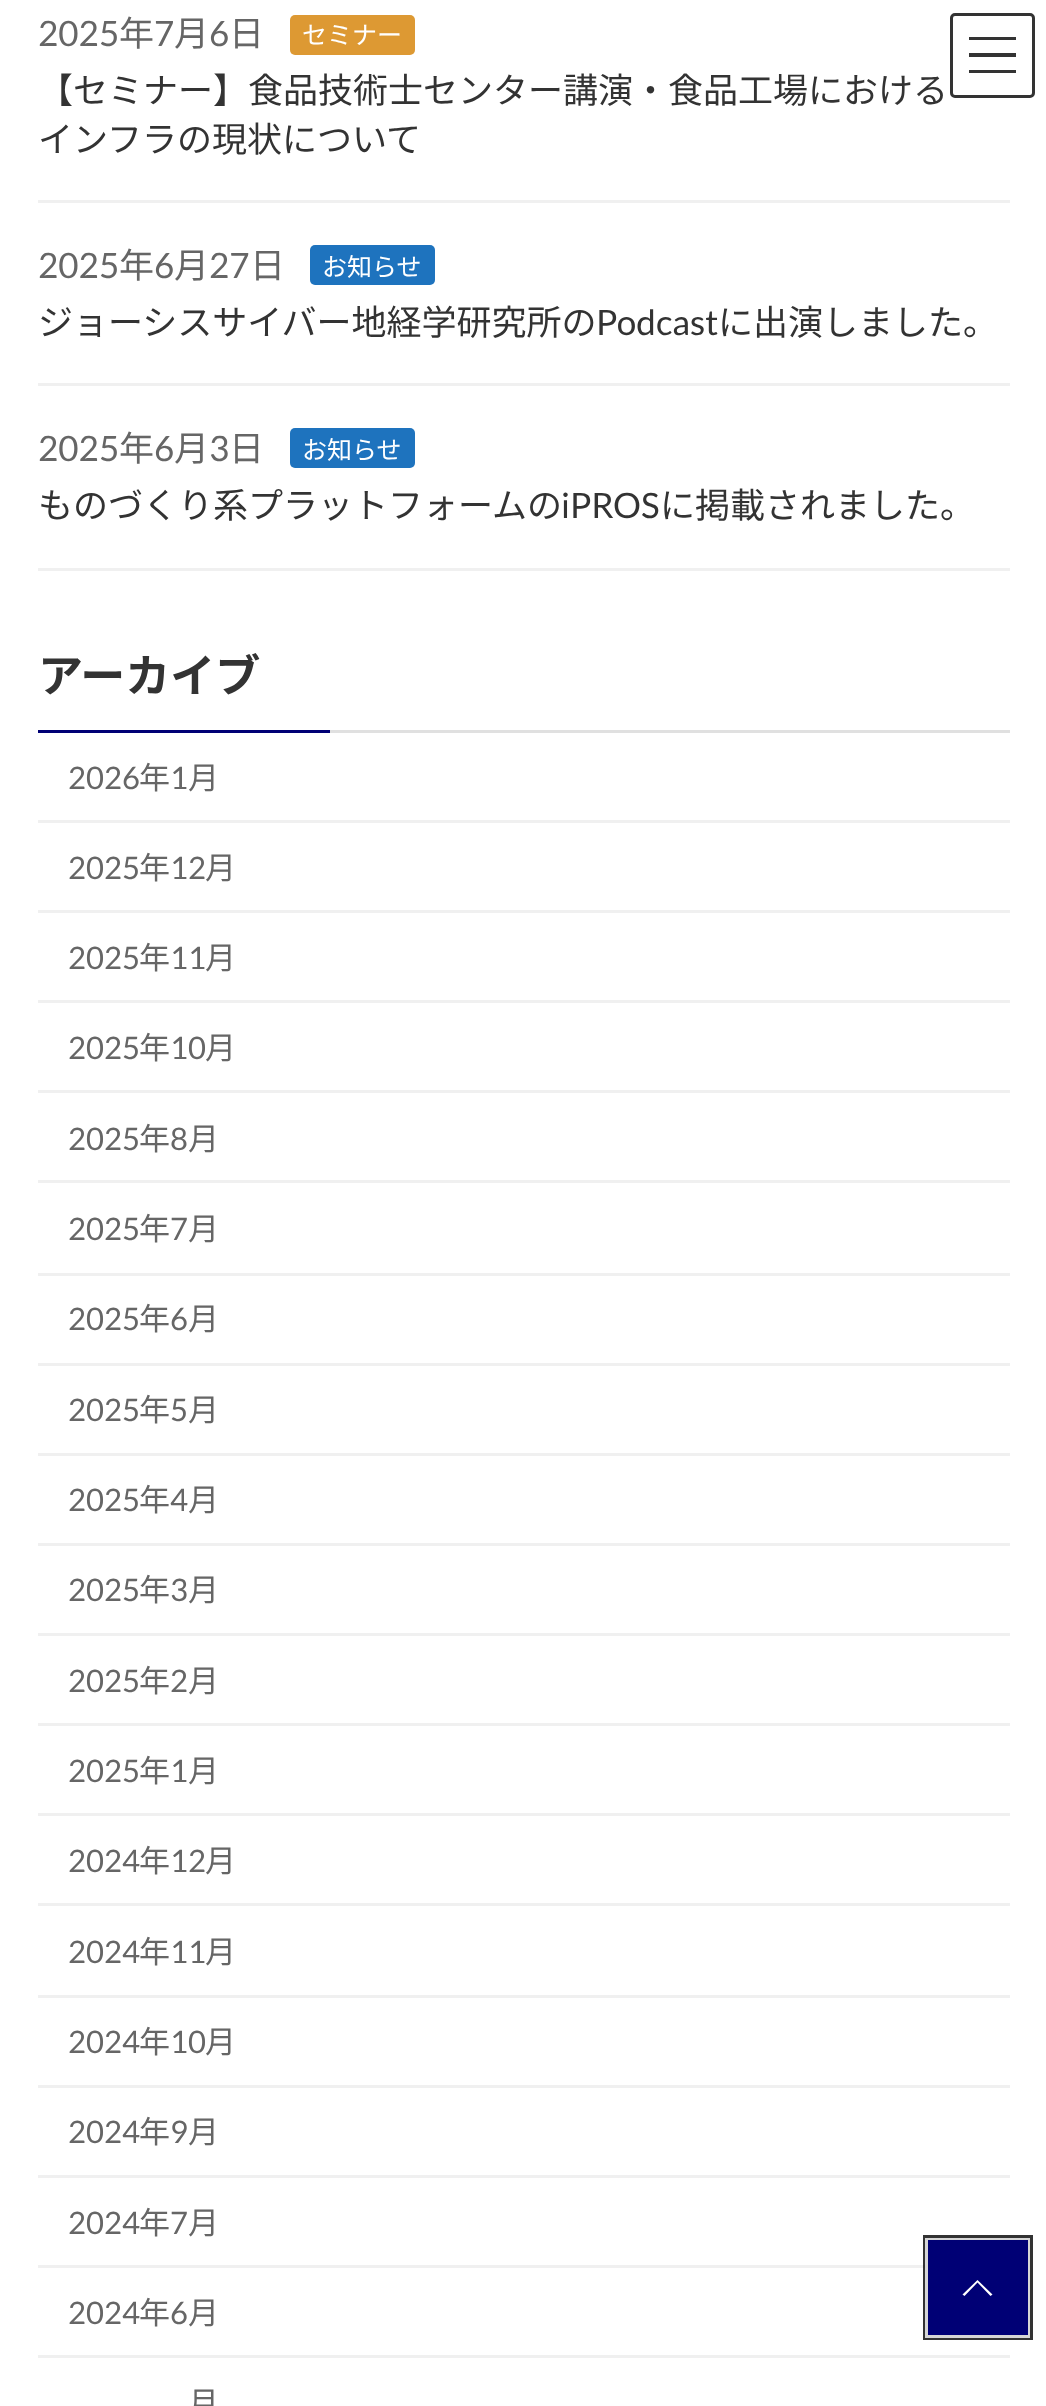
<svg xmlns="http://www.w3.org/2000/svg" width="1046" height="2406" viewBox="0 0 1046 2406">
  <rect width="100%" height="100%" fill="rgb(255,255,255)"/>
  <rect x="38" y="200" width="972" height="3" fill="rgb(240,240,240)"/>
  <text x="38" y="46" font-family="Lato" font-size="35" fill="rgb(102,102,102)">2025</text>
  <text x="119" y="46" font-family="Noto Sans JP" font-size="35" fill="rgb(102,102,102)">年</text>
  <text x="154" y="46" font-family="Lato" font-size="35" fill="rgb(102,102,102)">7</text>
  <text x="174" y="46" font-family="Noto Sans JP" font-size="35" fill="rgb(102,102,102)">月</text>
  <text x="209" y="46" font-family="Lato" font-size="35" fill="rgb(102,102,102)">6</text>
  <text x="229" y="46" font-family="Noto Sans JP" font-size="35" fill="rgb(102,102,102)">日</text>
  <rect x="290" y="15" width="125" height="40" rx="5" fill="rgb(221,153,51)"/>
  <text x="302" y="44" font-family="Noto Sans JP" font-size="25" fill="rgb(255,255,255)">セミナー</text>
  <g font-family="Noto Sans JP" font-size="35" fill="rgb(51,51,51)">
    <text>
      <tspan x="38" y="103">【セミナー】食品技術士センター講演・食品工場における</tspan>
      <tspan x="38" y="152">インフラの現状について</tspan>
    </text>
  </g>
  <rect x="38" y="383" width="972" height="3" fill="rgb(240,240,240)"/>
  <text x="38" y="278" font-family="Lato" font-size="35" fill="rgb(102,102,102)">2025</text>
  <text x="119" y="278" font-family="Noto Sans JP" font-size="35" fill="rgb(102,102,102)">年</text>
  <text x="154" y="278" font-family="Lato" font-size="35" fill="rgb(102,102,102)">6</text>
  <text x="174" y="278" font-family="Noto Sans JP" font-size="35" fill="rgb(102,102,102)">月</text>
  <text x="209" y="278" font-family="Lato" font-size="35" fill="rgb(102,102,102)">27</text>
  <text x="250" y="278" font-family="Noto Sans JP" font-size="35" fill="rgb(102,102,102)">日</text>
  <rect x="310" y="245" width="125" height="40" rx="5" fill="rgb(30,115,190)"/>
  <text x="322" y="276" font-family="Noto Sans JP" font-size="25" fill="rgb(255,255,255)">お知らせ</text>
  <text x="38" y="335" font-family="Noto Sans JP" font-size="35" fill="rgb(51,51,51)">ジョーシスサイバー地経学研究所の</text>
  <text x="596" y="335" font-family="Lato" font-size="35" fill="rgb(51,51,51)">Podcast</text>
  <text x="718" y="335" font-family="Noto Sans JP" font-size="35" fill="rgb(51,51,51)">に出演しました。</text>
  <rect x="38" y="568" width="972" height="3" fill="rgb(240,240,240)"/>
  <text x="38" y="461" font-family="Lato" font-size="35" fill="rgb(102,102,102)">2025</text>
  <text x="119" y="461" font-family="Noto Sans JP" font-size="35" fill="rgb(102,102,102)">年</text>
  <text x="154" y="461" font-family="Lato" font-size="35" fill="rgb(102,102,102)">6</text>
  <text x="174" y="461" font-family="Noto Sans JP" font-size="35" fill="rgb(102,102,102)">月</text>
  <text x="209" y="461" font-family="Lato" font-size="35" fill="rgb(102,102,102)">3</text>
  <text x="229" y="461" font-family="Noto Sans JP" font-size="35" fill="rgb(102,102,102)">日</text>
  <rect x="290" y="428" width="125" height="40" rx="5" fill="rgb(30,115,190)"/>
  <text x="302" y="459" font-family="Noto Sans JP" font-size="25" fill="rgb(255,255,255)">お知らせ</text>
  <text x="38" y="518" font-family="Noto Sans JP" font-size="35" fill="rgb(51,51,51)">ものづくり系プラットフォームの</text>
  <text x="561" y="518" font-family="Lato" font-size="35" fill="rgb(51,51,51)">iPROS</text>
  <text x="660" y="518" font-family="Noto Sans JP" font-size="35" fill="rgb(51,51,51)">に掲載されました。</text>
  <rect x="330" y="730" width="680" height="3" fill="rgb(224,224,224)"/>
  <text x="38" y="692" font-family="Noto Sans JP" font-size="45" font-weight="bold" fill="rgb(51,51,51)">アーカイブ</text>
  <rect x="38" y="730" width="292" height="3" fill="rgb(0,0,117)"/>
  <rect x="38" y="820" width="972" height="3" fill="rgb(240,240,240)"/>
  <text x="68" y="789" font-family="Lato" font-size="31" fill="rgb(102,102,102)">2026</text>
  <text x="139" y="789" font-family="Noto Sans JP" font-size="31" fill="rgb(102,102,102)">年</text>
  <text x="170" y="789" font-family="Lato" font-size="31" fill="rgb(102,102,102)">1</text>
  <text x="188" y="789" font-family="Noto Sans JP" font-size="31" fill="rgb(102,102,102)">月</text>
  <rect x="38" y="910" width="972" height="3" fill="rgb(240,240,240)"/>
  <text x="68" y="879" font-family="Lato" font-size="31" fill="rgb(102,102,102)">2025</text>
  <text x="139" y="879" font-family="Noto Sans JP" font-size="31" fill="rgb(102,102,102)">年</text>
  <text x="170" y="879" font-family="Lato" font-size="31" fill="rgb(102,102,102)">12</text>
  <text x="205" y="879" font-family="Noto Sans JP" font-size="31" fill="rgb(102,102,102)">月</text>
  <rect x="38" y="1000" width="972" height="3" fill="rgb(240,240,240)"/>
  <text x="68" y="969" font-family="Lato" font-size="31" fill="rgb(102,102,102)">2025</text>
  <text x="139" y="969" font-family="Noto Sans JP" font-size="31" fill="rgb(102,102,102)">年</text>
  <text x="170" y="969" font-family="Lato" font-size="31" fill="rgb(102,102,102)">11</text>
  <text x="205" y="969" font-family="Noto Sans JP" font-size="31" fill="rgb(102,102,102)">月</text>
  <rect x="38" y="1090" width="972" height="3" fill="rgb(240,240,240)"/>
  <text x="68" y="1059" font-family="Lato" font-size="31" fill="rgb(102,102,102)">2025</text>
  <text x="139" y="1059" font-family="Noto Sans JP" font-size="31" fill="rgb(102,102,102)">年</text>
  <text x="170" y="1059" font-family="Lato" font-size="31" fill="rgb(102,102,102)">10</text>
  <text x="205" y="1059" font-family="Noto Sans JP" font-size="31" fill="rgb(102,102,102)">月</text>
  <rect x="38" y="1180" width="972" height="3" fill="rgb(240,240,240)"/>
  <text x="68" y="1150" font-family="Lato" font-size="31" fill="rgb(102,102,102)">2025</text>
  <text x="139" y="1150" font-family="Noto Sans JP" font-size="31" fill="rgb(102,102,102)">年</text>
  <text x="170" y="1150" font-family="Lato" font-size="31" fill="rgb(102,102,102)">8</text>
  <text x="188" y="1150" font-family="Noto Sans JP" font-size="31" fill="rgb(102,102,102)">月</text>
  <rect x="38" y="1273" width="972" height="3" fill="rgb(240,240,240)"/>
  <text x="68" y="1240" font-family="Lato" font-size="31" fill="rgb(102,102,102)">2025</text>
  <text x="139" y="1240" font-family="Noto Sans JP" font-size="31" fill="rgb(102,102,102)">年</text>
  <text x="170" y="1240" font-family="Lato" font-size="31" fill="rgb(102,102,102)">7</text>
  <text x="188" y="1240" font-family="Noto Sans JP" font-size="31" fill="rgb(102,102,102)">月</text>
  <rect x="38" y="1363" width="972" height="3" fill="rgb(240,240,240)"/>
  <text x="68" y="1330" font-family="Lato" font-size="31" fill="rgb(102,102,102)">2025</text>
  <text x="139" y="1330" font-family="Noto Sans JP" font-size="31" fill="rgb(102,102,102)">年</text>
  <text x="170" y="1330" font-family="Lato" font-size="31" fill="rgb(102,102,102)">6</text>
  <text x="188" y="1330" font-family="Noto Sans JP" font-size="31" fill="rgb(102,102,102)">月</text>
  <rect x="38" y="1453" width="972" height="3" fill="rgb(240,240,240)"/>
  <text x="68" y="1421" font-family="Lato" font-size="31" fill="rgb(102,102,102)">2025</text>
  <text x="139" y="1421" font-family="Noto Sans JP" font-size="31" fill="rgb(102,102,102)">年</text>
  <text x="170" y="1421" font-family="Lato" font-size="31" fill="rgb(102,102,102)">5</text>
  <text x="188" y="1421" font-family="Noto Sans JP" font-size="31" fill="rgb(102,102,102)">月</text>
  <rect x="38" y="1543" width="972" height="3" fill="rgb(240,240,240)"/>
  <text x="68" y="1511" font-family="Lato" font-size="31" fill="rgb(102,102,102)">2025</text>
  <text x="139" y="1511" font-family="Noto Sans JP" font-size="31" fill="rgb(102,102,102)">年</text>
  <text x="170" y="1511" font-family="Lato" font-size="31" fill="rgb(102,102,102)">4</text>
  <text x="188" y="1511" font-family="Noto Sans JP" font-size="31" fill="rgb(102,102,102)">月</text>
  <rect x="38" y="1633" width="972" height="3" fill="rgb(240,240,240)"/>
  <text x="68" y="1601" font-family="Lato" font-size="31" fill="rgb(102,102,102)">2025</text>
  <text x="139" y="1601" font-family="Noto Sans JP" font-size="31" fill="rgb(102,102,102)">年</text>
  <text x="170" y="1601" font-family="Lato" font-size="31" fill="rgb(102,102,102)">3</text>
  <text x="188" y="1601" font-family="Noto Sans JP" font-size="31" fill="rgb(102,102,102)">月</text>
  <rect x="38" y="1723" width="972" height="3" fill="rgb(240,240,240)"/>
  <text x="68" y="1692" font-family="Lato" font-size="31" fill="rgb(102,102,102)">2025</text>
  <text x="139" y="1692" font-family="Noto Sans JP" font-size="31" fill="rgb(102,102,102)">年</text>
  <text x="170" y="1692" font-family="Lato" font-size="31" fill="rgb(102,102,102)">2</text>
  <text x="188" y="1692" font-family="Noto Sans JP" font-size="31" fill="rgb(102,102,102)">月</text>
  <rect x="38" y="1813" width="972" height="3" fill="rgb(240,240,240)"/>
  <text x="68" y="1782" font-family="Lato" font-size="31" fill="rgb(102,102,102)">2025</text>
  <text x="139" y="1782" font-family="Noto Sans JP" font-size="31" fill="rgb(102,102,102)">年</text>
  <text x="170" y="1782" font-family="Lato" font-size="31" fill="rgb(102,102,102)">1</text>
  <text x="188" y="1782" font-family="Noto Sans JP" font-size="31" fill="rgb(102,102,102)">月</text>
  <rect x="38" y="1903" width="972" height="3" fill="rgb(240,240,240)"/>
  <text x="68" y="1872" font-family="Lato" font-size="31" fill="rgb(102,102,102)">2024</text>
  <text x="139" y="1872" font-family="Noto Sans JP" font-size="31" fill="rgb(102,102,102)">年</text>
  <text x="170" y="1872" font-family="Lato" font-size="31" fill="rgb(102,102,102)">12</text>
  <text x="205" y="1872" font-family="Noto Sans JP" font-size="31" fill="rgb(102,102,102)">月</text>
  <rect x="38" y="1995" width="972" height="3" fill="rgb(240,240,240)"/>
  <text x="68" y="1963" font-family="Lato" font-size="31" fill="rgb(102,102,102)">2024</text>
  <text x="139" y="1963" font-family="Noto Sans JP" font-size="31" fill="rgb(102,102,102)">年</text>
  <text x="170" y="1963" font-family="Lato" font-size="31" fill="rgb(102,102,102)">11</text>
  <text x="205" y="1963" font-family="Noto Sans JP" font-size="31" fill="rgb(102,102,102)">月</text>
  <rect x="38" y="2085" width="972" height="3" fill="rgb(240,240,240)"/>
  <text x="68" y="2053" font-family="Lato" font-size="31" fill="rgb(102,102,102)">2024</text>
  <text x="139" y="2053" font-family="Noto Sans JP" font-size="31" fill="rgb(102,102,102)">年</text>
  <text x="170" y="2053" font-family="Lato" font-size="31" fill="rgb(102,102,102)">10</text>
  <text x="205" y="2053" font-family="Noto Sans JP" font-size="31" fill="rgb(102,102,102)">月</text>
  <rect x="38" y="2175" width="972" height="3" fill="rgb(240,240,240)"/>
  <text x="68" y="2143" font-family="Lato" font-size="31" fill="rgb(102,102,102)">2024</text>
  <text x="139" y="2143" font-family="Noto Sans JP" font-size="31" fill="rgb(102,102,102)">年</text>
  <text x="170" y="2143" font-family="Lato" font-size="31" fill="rgb(102,102,102)">9</text>
  <text x="188" y="2143" font-family="Noto Sans JP" font-size="31" fill="rgb(102,102,102)">月</text>
  <rect x="38" y="2265" width="890" height="3" fill="rgb(240,240,240)"/>
  <text x="68" y="2234" font-family="Lato" font-size="31" fill="rgb(102,102,102)">2024</text>
  <text x="139" y="2234" font-family="Noto Sans JP" font-size="31" fill="rgb(102,102,102)">年</text>
  <text x="170" y="2234" font-family="Lato" font-size="31" fill="rgb(102,102,102)">7</text>
  <text x="188" y="2234" font-family="Noto Sans JP" font-size="31" fill="rgb(102,102,102)">月</text>
  <rect x="38" y="2355" width="972" height="3" fill="rgb(240,240,240)"/>
  <text x="68" y="2324" font-family="Lato" font-size="31" fill="rgb(102,102,102)">2024</text>
  <text x="139" y="2324" font-family="Noto Sans JP" font-size="31" fill="rgb(102,102,102)">年</text>
  <text x="170" y="2324" font-family="Lato" font-size="31" fill="rgb(102,102,102)">6</text>
  <g font-family="Noto Sans JP" font-size="31" fill="rgb(102,102,102)">
    <text x="188" y="2324">月</text>
    <text x="188" y="2414">月</text>
  </g>
  <rect x="969" y="37" width="47" height="3" fill="rgb(51,51,51)"/>
  <rect x="969" y="53" width="47" height="4" fill="rgb(51,51,51)"/>
  <rect x="969" y="70" width="47" height="3" fill="rgb(51,51,51)"/>
  <rect x="951.5" y="14.5" width="82" height="82" rx="3.5" fill="none" stroke="rgb(51,51,51)" stroke-width="3"/>
  <rect x="925.5" y="2237.5" width="105" height="100" fill="none" stroke="rgba(0,0,0,0.8)" stroke-width="5"/>
  <rect x="926.5" y="2239.5" width="102" height="97" fill="none" stroke="rgba(255,255,255,0.8)" stroke-width="3"/>
  <rect x="928" y="2240" width="100" height="95" fill="rgb(0,0,117)"/>
  <path d="M992.5 2294.5L990.5 2296L977.5 2282.5L964.5 2296L962.5 2294.5L977.5 2280Z" fill="rgb(255,255,255)"/>
</svg>
